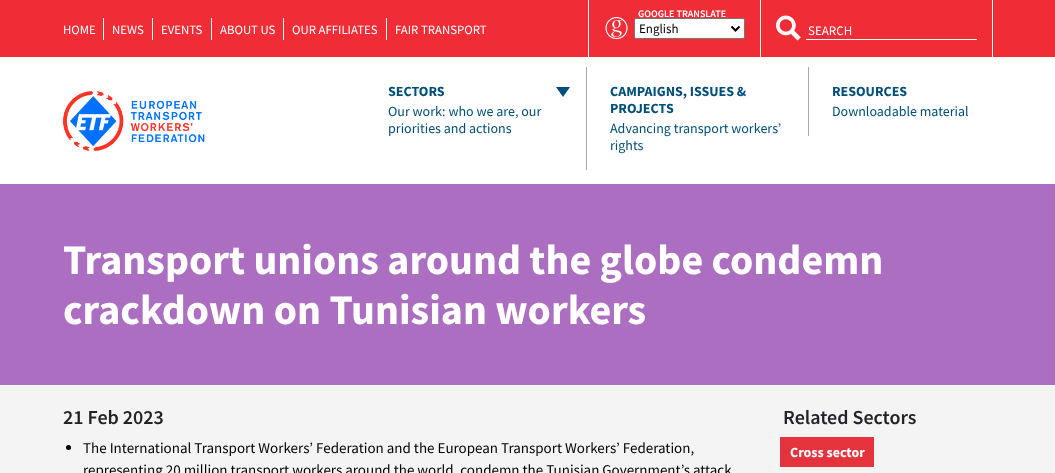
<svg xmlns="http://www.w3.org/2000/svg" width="1055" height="473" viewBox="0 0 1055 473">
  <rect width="100%" height="100%" fill="rgb(255,255,255)"/>
  <rect x="0" y="0" width="1055" height="57" fill="rgb(240,45,54)"/>
  <text x="63" y="34" font-family="Source Sans Pro" font-size="12.75" fill="rgb(255,255,255)">HOME</text>
  <rect x="103" y="18" width="1" height="22" fill="rgb(255,255,255)"/>
  <text x="112" y="34" font-family="Source Sans Pro" font-size="12.75" fill="rgb(255,255,255)">NEWS</text>
  <rect x="152" y="18" width="1" height="22" fill="rgb(255,255,255)"/>
  <text x="161" y="34" font-family="Source Sans Pro" font-size="12.75" fill="rgb(255,255,255)">EVENTS</text>
  <rect x="211" y="18" width="1" height="22" fill="rgb(255,255,255)"/>
  <text x="220" y="34" font-family="Source Sans Pro" font-size="12.75" fill="rgb(255,255,255)">ABOUT US</text>
  <rect x="283" y="18" width="1" height="22" fill="rgb(255,255,255)"/>
  <text x="292" y="34" font-family="Source Sans Pro" font-size="12.75" fill="rgb(255,255,255)">OUR AFFILIATES</text>
  <rect x="386" y="18" width="1" height="22" fill="rgb(255,255,255)"/>
  <text x="395" y="34" font-family="Source Sans Pro" font-size="12.75" fill="rgb(255,255,255)">FAIR TRANSPORT</text>
  <rect x="760" y="0" width="1" height="57" fill="rgb(255,255,255)"/>
  <rect x="588" y="0" width="1" height="57" fill="rgb(255,255,255)"/>
  <image x="605" y="17" width="23" height="23" href="pic1.png"/>
  <text x="638" y="17" font-family="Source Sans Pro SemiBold" font-size="10" font-weight="600" fill="rgb(255,255,255)">GOOGLE TRANSLATE</text>
  <rect x="634.5" y="18.5" width="110" height="20" rx="1.5" fill="rgb(255,255,255)" stroke="rgb(118,118,118)"/>
  <path d="M731.5 26.5L735.5 30.5L739.5 26.5" fill="none" stroke="rgb(0,0,0)" stroke-width="2"/>
  <text x="639" y="33" font-family="Source Sans Pro" font-size="13" fill="rgb(0,0,0)">English</text>
  <rect x="992" y="0" width="1" height="57" fill="rgb(255,255,255)"/>
  <image x="776" y="15" width="25" height="26" href="pic2.png"/>
  <rect x="806" y="39" width="171" height="1" fill="rgb(255,255,255)"/>
  <text x="808" y="35" font-family="Source Sans Pro" font-size="13" fill="rgb(255,255,255)">SEARCH</text>
  <image x="62" y="91" width="143" height="60" href="pic3.png"/>
  <text x="388" y="96" font-family="Source Sans Pro" font-size="14" font-weight="bold" fill="rgb(0,79,122)">SECTORS</text>
  <path d="M556 87H570L563 97Z" fill="rgb(0,79,122)"/>
  <g font-family="Source Sans Pro" font-size="14" fill="rgb(0,79,122)">
    <text>
      <tspan x="388" y="116">Our work: who we are, our</tspan>
      <tspan x="388" y="133">priorities and actions</tspan>
    </text>
  </g>
  <rect x="586" y="67" width="1" height="103" fill="rgb(169,169,169)"/>
  <g font-family="Source Sans Pro" font-size="14" font-weight="bold" fill="rgb(0,79,122)">
    <text>
      <tspan x="610" y="96">CAMPAIGNS, ISSUES &amp;</tspan>
      <tspan x="610" y="113">PROJECTS</tspan>
    </text>
  </g>
  <g font-family="Source Sans Pro" font-size="14" fill="rgb(0,79,122)">
    <text>
      <tspan x="610" y="133">Advancing transport workers’</tspan>
      <tspan x="610" y="150">rights</tspan>
    </text>
  </g>
  <rect x="808" y="67" width="1" height="69" fill="rgb(169,169,169)"/>
  <text x="832" y="96" font-family="Source Sans Pro" font-size="14" font-weight="bold" fill="rgb(0,79,122)">RESOURCES</text>
  <text x="832" y="116" font-family="Source Sans Pro" font-size="14" fill="rgb(0,79,122)">Downloadable material</text>
  <rect x="0" y="184" width="1055" height="201" fill="rgb(171,110,193)"/>
  <g font-family="Source Sans Pro" font-size="42" font-weight="bold" fill="rgb(255,255,255)">
    <text>
      <tspan x="63" y="274">Transport unions around the globe condemn</tspan>
      <tspan x="63" y="324">crackdown on Tunisian workers</tspan>
    </text>
  </g>
  <rect x="0" y="385" width="1055" height="88" fill="rgb(244,244,244)"/>
  <text x="63" y="424" font-family="Source Sans Pro SemiBold" font-size="20" font-weight="600" fill="rgb(33,37,41)">21 Feb 2023</text>
  <circle cx="68.5" cy="447.5" r="2.5" fill="rgb(0,0,0)"/>
  <g font-family="Source Sans Pro" font-size="15" fill="rgb(0,0,0)">
    <text>
      <tspan x="83" y="453">The International Transport Workers’ Federation and the European Transport Workers’ Federation,</tspan>
      <tspan x="83" y="475">representing 20 million transport workers around the world, condemn the Tunisian Government’s attack</tspan>
    </text>
  </g>
  <text x="783" y="424" font-family="Source Sans Pro SemiBold" font-size="20" font-weight="600" fill="rgb(33,37,41)">Related Sectors</text>
  <rect x="780" y="437" width="94" height="30" fill="rgb(229,51,62)"/>
  <text x="790" y="457" font-family="Source Sans Pro" font-size="14" font-weight="bold" fill="rgb(255,255,255)">Cross sector</text>
</svg>
